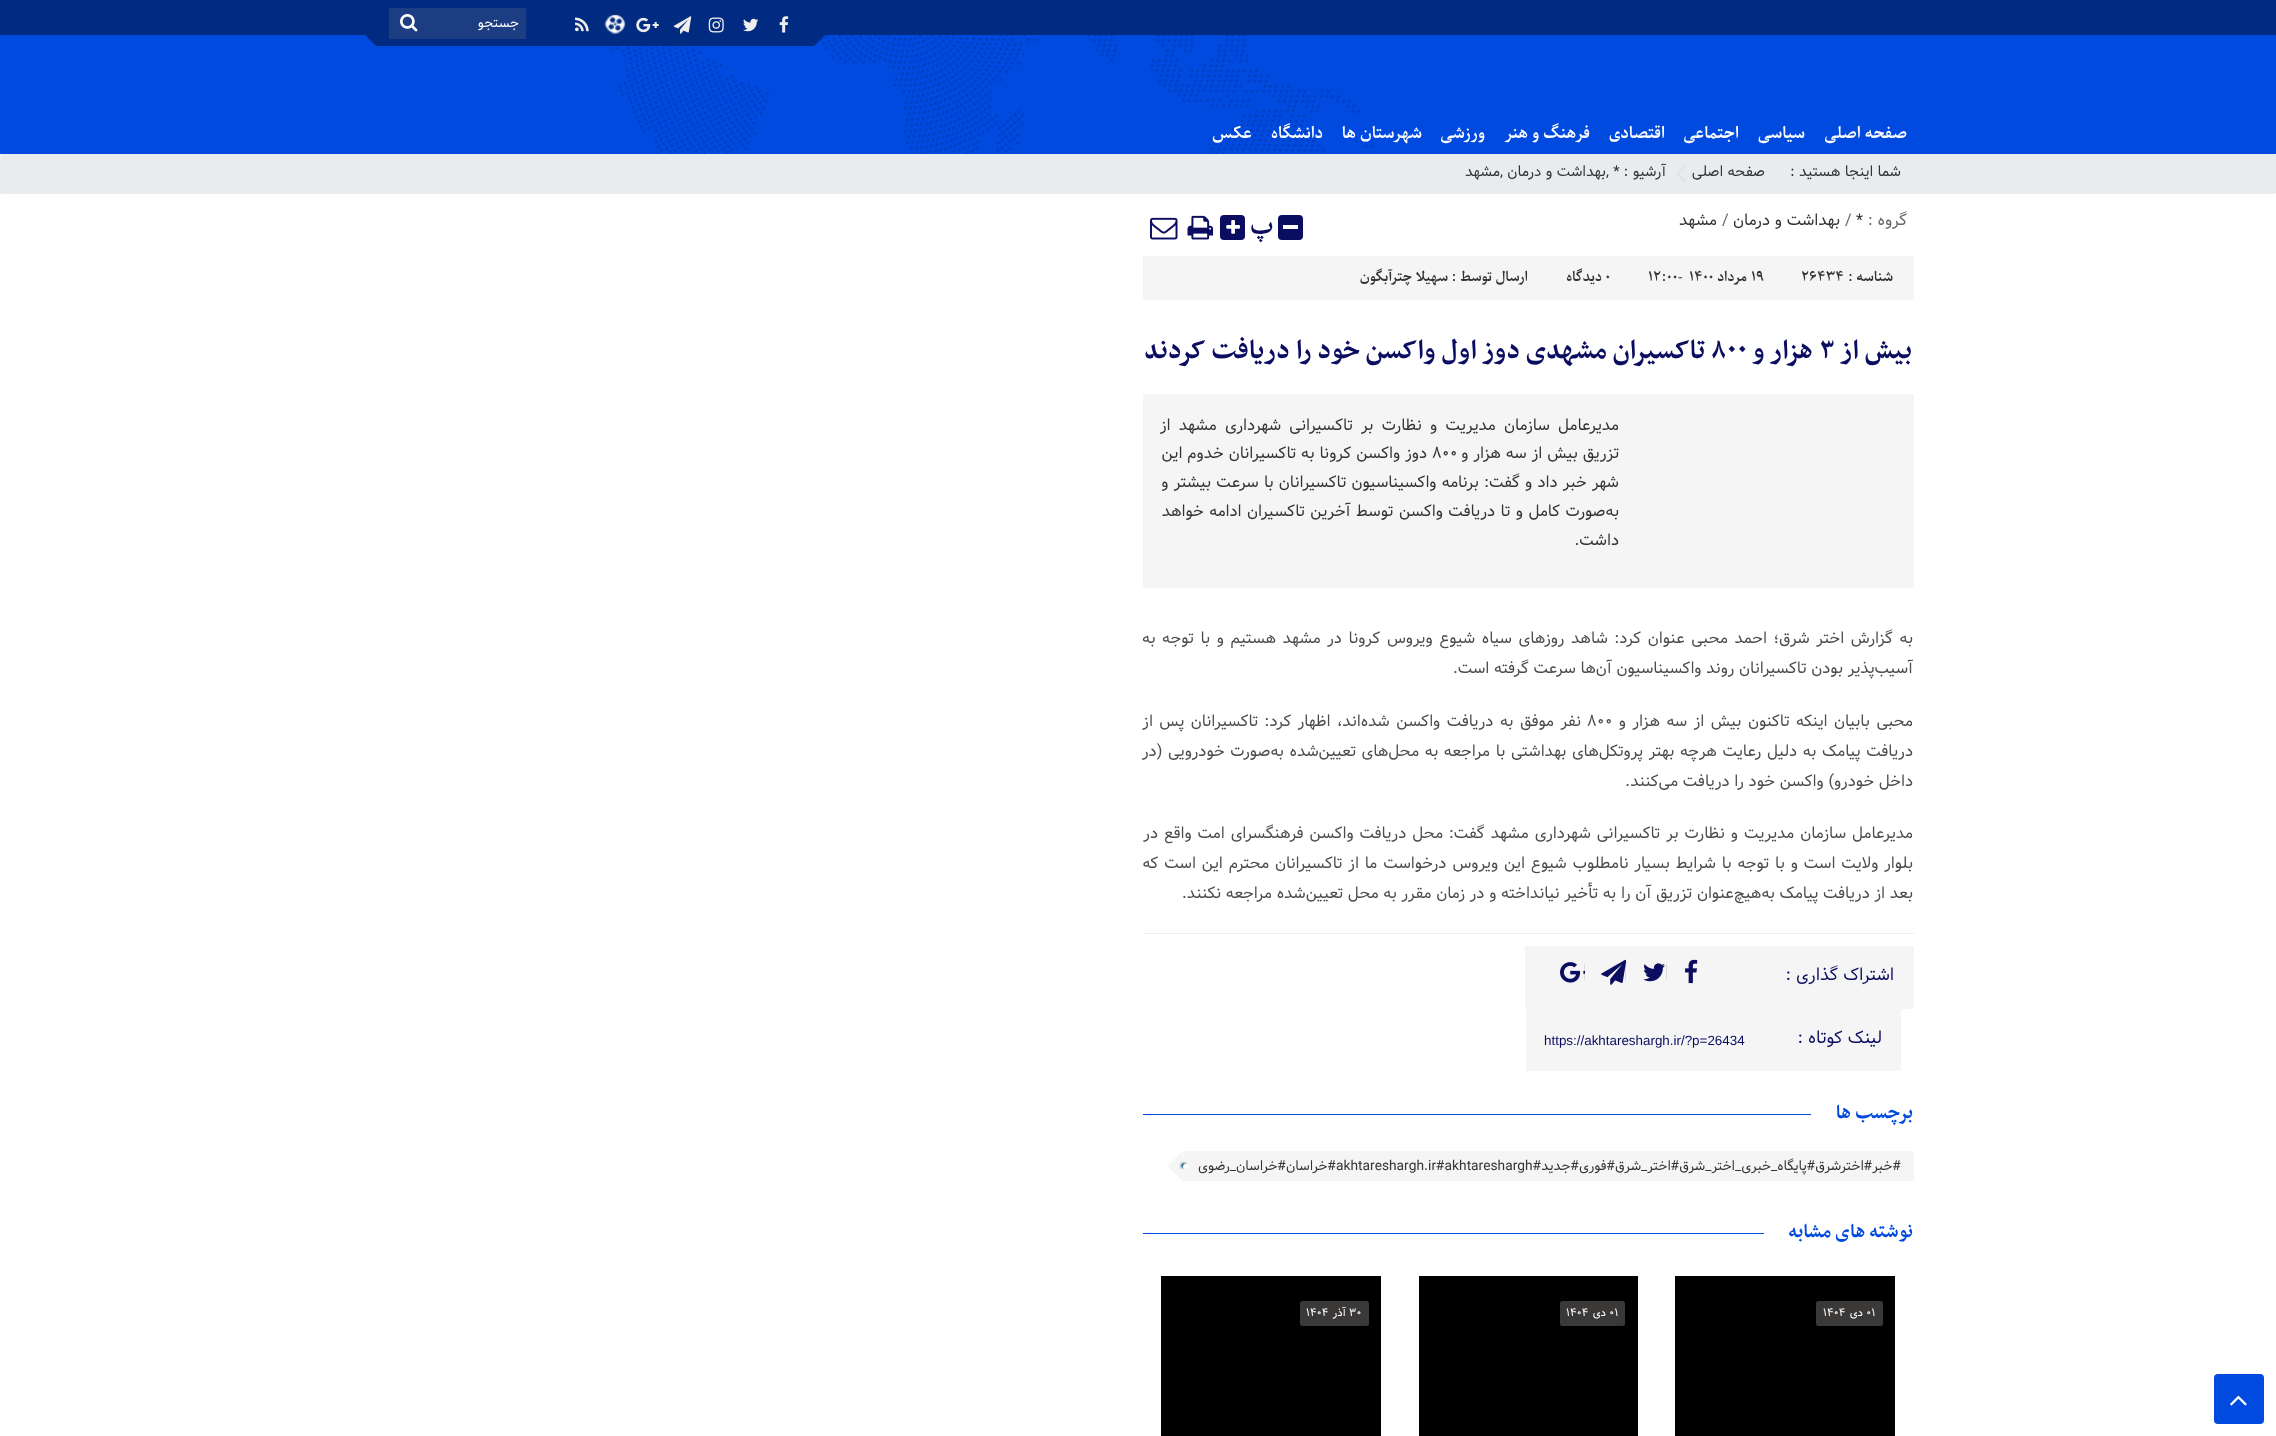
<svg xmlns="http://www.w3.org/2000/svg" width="2276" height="1436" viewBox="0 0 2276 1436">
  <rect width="100%" height="100%" fill="rgb(255,255,255)"/>
  <rect x="0" y="0" width="2276" height="35" fill="rgb(1,43,129)"/>
  <rect x="0" y="35" width="2276" height="119" fill="rgb(0,74,223)"/>
  <image x="609" y="35" width="765" height="119" href="pic9.png"/>
  <rect x="376" y="35" width="438" height="11" fill="rgb(1,43,129)"/>
  <image x="779" y="16" width="10" height="17" href="pic1.png"/>
  <image x="743" y="18" width="16" height="14" href="pic2.png"/>
  <image x="708" y="17" width="16" height="16" href="pic3.png"/>
  <image x="673" y="16" width="19" height="18" href="pic4.png"/>
  <image x="636" y="17" width="23" height="16" href="pic5.png"/>
  <image x="604" y="14" width="22" height="20" href="pic6.png"/>
  <image x="575" y="17" width="14" height="15" href="pic7.png"/>
  <rect x="389" y="8" width="137" height="31" fill="rgb(28,61,130)"/>
  <text x="519" y="27" font-family="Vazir" font-size="13.75" direction="rtl" fill="rgb(255,255,255)">جستجو</text>
  <image x="400" y="14" width="18" height="18" href="pic8.png"/>
  <path d="M814 31H829L814 46Z" fill="rgb(1,43,129)"/>
  <path d="M361 31H376V46Z" fill="rgb(1,43,129)"/>
  <g font-family="Parastoo" font-size="16.25" font-weight="bold" direction="rtl" fill="rgb(255,255,255)">
    <text x="1907" y="138">صفحه اصلی</text>
    <text x="1805" y="138">سیاسی</text>
    <text x="1739" y="138">اجتماعی</text>
    <text x="1665" y="138">اقتصادی</text>
    <text x="1590" y="138">فرهنگ و هنر</text>
    <text x="1485" y="138">ورزشی</text>
    <text x="1422" y="138">شهرستان ها</text>
    <text x="1323" y="138">دانشگاه</text>
    <text x="1252" y="138">عکس</text>
  </g>
  <rect x="0" y="154" width="2276" height="40" rx="2.5" fill="rgb(233,236,239)"/>
  <g font-family="Vazir" font-size="15" direction="rtl" fill="rgb(51,51,51)">
    <text x="1901" y="176">شما اینجا هستید :</text>
    <text x="1765" y="176">صفحه اصلی</text>
  </g>
  <path d="M1677.5 173L1686 181.5L1685 182.5L1676.5 174Z" fill="rgb(221,221,221)"/>
  <path d="M1685 165L1686 166L1677.5 174.5L1676.5 174Z" fill="rgb(221,221,221)"/>
  <text x="1666" y="176" font-family="Vazir" font-size="15" direction="rtl" fill="rgb(51,51,51)">آرشیو :</text>
  <text x="1606" y="176" font-family="Vazir" font-size="15" fill="rgb(51,51,51)">, *</text>
  <text x="1606" y="176" font-family="Vazir" font-size="15" direction="rtl" fill="rgb(51,51,51)">بهداشت و درمان</text>
  <text x="1500" y="176" font-family="Vazir" font-size="15" fill="rgb(51,51,51)">,</text>
  <text x="1500" y="176" font-family="Vazir" font-size="15" direction="rtl" fill="rgb(51,51,51)">مشهد</text>
  <text x="1907" y="225" font-family="Vazir" font-size="16.25" direction="rtl" fill="rgb(102,102,102)">گروه :</text>
  <text x="1856" y="225" font-family="Vazir" font-size="16.25" fill="rgb(51,51,51)">*</text>
  <text x="1845" y="225" font-family="Vazir" font-size="16.25" fill="rgb(102,102,102)">/</text>
  <text x="1840" y="225" font-family="Vazir" font-size="16.25" direction="rtl" fill="rgb(51,51,51)">بهداشت و درمان</text>
  <text x="1722" y="225" font-family="Vazir" font-size="16.25" fill="rgb(102,102,102)">/</text>
  <text x="1717" y="225" font-family="Vazir" font-size="16.25" direction="rtl" fill="rgb(51,51,51)">مشهد</text>
  <rect x="1278" y="215" width="25" height="25" rx="4" fill="rgb(11,13,96)"/>
  <rect x="1283" y="225" width="15" height="4" fill="rgb(255,255,255)"/>
  <text x="1273" y="233" font-family="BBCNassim" font-size="28" font-weight="bold" direction="rtl" fill="rgb(11,13,96)">پ</text>
  <rect x="1220" y="215" width="25" height="25" rx="4" fill="rgb(11,13,96)"/>
  <image x="1226" y="220" width="14" height="14" href="pic10.png"/>
  <image x="1187" y="215" width="27" height="25" href="pic11.png"/>
  <image x="1150" y="217" width="28" height="23" href="pic12.png"/>
  <rect x="1143" y="256" width="771" height="44" fill="rgb(245,245,245)"/>
  <text x="1893" y="281" font-family="Parastoo" font-size="13.75" font-weight="bold" direction="rtl" fill="rgb(51,51,51)">شناسه :</text>
  <g font-family="Parastoo" font-size="13.75" font-weight="bold" fill="rgb(51,51,51)">
    <text x="1801" y="281">26434</text>
    <text x="1751" y="281">۱۹</text>
  </g>
  <text x="1747" y="281" font-family="Parastoo" font-size="13.75" font-weight="bold" direction="rtl" fill="rgb(51,51,51)">مرداد</text>
  <text x="1689" y="281" font-family="Parastoo" font-size="13.75" font-weight="bold" fill="rgb(51,51,51)">۱۴۰۰</text>
  <text x="1678" y="281" font-family="Liberation Serif" font-size="13.75" fill="rgb(51,51,51)">-</text>
  <g font-family="Parastoo" font-size="13.75" font-weight="bold" fill="rgb(51,51,51)">
    <text x="1648" y="281">۱۲:۰۰</text>
    <text x="1605" y="281">۰</text>
  </g>
  <g font-family="Parastoo" font-size="13.75" font-weight="bold" direction="rtl" fill="rgb(51,51,51)">
    <text x="1602" y="281">دیدگاه</text>
    <text x="1528" y="281">ارسال توسط :</text>
    <text x="1448" y="281">سهیلا چترآبگون</text>
  </g>
  <text x="1912" y="358" font-family="BBCNassim" font-size="31.5" font-weight="bold" direction="rtl" fill="rgb(11,13,96)">بیش از</text>
  <text x="1819" y="358" font-family="BBCNassim" font-size="31.5" font-weight="bold" fill="rgb(11,13,96)">۳</text>
  <text x="1813" y="358" font-family="BBCNassim" font-size="31.5" font-weight="bold" direction="rtl" fill="rgb(11,13,96)">هزار و</text>
  <text x="1711" y="358" font-family="BBCNassim" font-size="31.5" font-weight="bold" fill="rgb(11,13,96)">۸۰۰</text>
  <text x="1705" y="358" font-family="BBCNassim" font-size="31.5" font-weight="bold" direction="rtl" fill="rgb(11,13,96)">تاکسیران مشهدی دوز اول واکسن خود را دریافت کردند</text>
  <rect x="1143" y="394" width="771" height="194" fill="rgb(245,245,245)"/>
  <g font-family="Vazir" font-size="16.25" direction="rtl" fill="rgb(51,51,51)">
    <text>
      <tspan x="1619" y="430" word-spacing="3.5">مدیرعامل سازمان مدیریت و نظارت بر تاکسیرانی شهرداری مشهد از</tspan>
      <tspan x="1619" y="458" word-spacing="0.25">تزریق بیش از سه هزار و</tspan>
    </text>
  </g>
  <text x="1432" y="458" font-family="Vazir" font-size="16.25" fill="rgb(51,51,51)">۸۰۰</text>
  <g font-family="Vazir" font-size="16.25" direction="rtl" fill="rgb(51,51,51)">
    <text x="1427" y="458" word-spacing="0.25">دوز واکسن کرونا به تاکسیرانان خدوم این</text>
    <text>
      <tspan x="1619" y="487" word-spacing="0.5">شهر خبر داد و گفت: برنامه واکسیناسیون تاکسیرانان با سرعت بیشتر و</tspan>
      <tspan x="1619" y="516" word-spacing="0.75">به‌صورت کامل و تا دریافت واکسن توسط آخرین تاکسیران ادامه خواهد</tspan>
      <tspan x="1619" y="545">داشت.</tspan>
    </text>
  </g>
  <g font-family="Vazir" font-size="16.25" direction="rtl" fill="rgb(76,76,76)">
    <text>
      <tspan x="1913" y="643" word-spacing="1.9">به گزارش اختر شرق؛ احمد محبی عنوان کرد: شاهد روزهای سیاه شیوع ویروس کرونا در مشهد هستیم و با توجه به</tspan>
      <tspan x="1913" y="673">آسیب‌پذیر بودن تاکسیرانان روند واکسیناسیون آن‌ها سرعت گرفته است.</tspan>
    </text>
    <text x="1913" y="726" word-spacing="1.75">محبی بابیان اینکه تاکنون بیش از سه هزار و</text>
  </g>
  <text x="1587" y="726" font-family="Vazir" font-size="16.25" fill="rgb(76,76,76)">۸۰۰</text>
  <g font-family="Vazir" font-size="16.25" direction="rtl" fill="rgb(76,76,76)">
    <text x="1581" y="726" word-spacing="1.75">نفر موفق به دریافت واکسن شده‌اند، اظهار کرد: تاکسیرانان پس از</text>
    <text>
      <tspan x="1913" y="756" word-spacing="0.9">دریافت پیامک به دلیل رعایت هرچه بهتر پروتکل‌های بهداشتی با مراجعه به محل‌های تعیین‌شده به‌صورت خودرویی (در</tspan>
      <tspan x="1913" y="786">داخل خودرو) واکسن خود را دریافت می‌کنند.</tspan>
    </text>
    <text>
      <tspan x="1913" y="838" word-spacing="1.25">مدیرعامل سازمان مدیریت و نظارت بر تاکسیرانی شهرداری مشهد گفت: محل دریافت واکسن فرهنگسرای امت واقع در</tspan>
      <tspan x="1913" y="868" word-spacing="1.2">بلوار ولایت است و با توجه با شرایط بسیار نامطلوب شیوع این ویروس درخواست ما از تاکسیرانان محترم این است که</tspan>
      <tspan x="1913" y="898">بعد از دریافت پیامک به‌هیچ‌عنوان تزریق آن را به تأخیر نیانداخته و در زمان مقرر به محل تعیین‌شده مراجعه نکنند.</tspan>
    </text>
  </g>
  <rect x="1143" y="933" width="771" height="1" fill="rgb(238,238,238)"/>
  <rect x="1525" y="946" width="389" height="63" fill="rgb(245,245,245)"/>
  <text x="1894" y="980" font-family="Vazir" font-size="17.5" direction="rtl" fill="rgb(11,13,96)">اشتراک گذاری :</text>
  <image x="1685" y="959" width="13" height="25" href="pic13.png"/>
  <rect x="1666" y="964" width="1" height="16" fill="rgb(221,221,221)"/>
  <image x="1643" y="963" width="22" height="19" href="pic14.png"/>
  <rect x="1625" y="964" width="1" height="16" fill="rgb(221,221,221)"/>
  <image x="1601" y="959" width="25" height="26" href="pic15.png"/>
  <rect x="1584" y="964" width="1" height="16" fill="rgb(221,221,221)"/>
  <image x="1560" y="962" width="25" height="21" href="pic16.png"/>
  <rect x="1526" y="1009" width="375" height="62" fill="rgb(245,245,245)"/>
  <text x="1882" y="1043" font-family="Vazir" font-size="17.5" direction="rtl" fill="rgb(11,13,96)">لینک کوتاه :</text>
  <text x="1544" y="1045" font-family="Liberation Sans" font-size="13.4" fill="rgb(11,13,96)">https://akhtareshargh.ir/?p=26434</text>
  <text x="1913" y="1118" font-family="BBCNassim" font-size="22.5" font-weight="bold" direction="rtl" fill="rgb(0,74,223)">برچسب ها</text>
  <rect x="1143" y="1114" width="668" height="1" fill="rgb(0,74,223)"/>
  <path d="M1183 1151H1911.5C1913 1151 1914 1152 1914 1153.5V1178.5C1914 1180 1913 1181 1911.5 1181H1183Z" fill="rgb(245,245,245)"/>
  <text x="1901" y="1170" font-family="Vazir" font-size="13.75" direction="rtl" fill="rgb(51,51,51)">#خبر#اخترشرق#پایگاه_خبری_اختر_شرق#اختر_شرق#فوری#جدید#</text>
  <text x="1336" y="1170" font-family="Vazir" font-size="13.75" fill="rgb(51,51,51)">akhtareshargh.ir#akhtareshargh</text>
  <text x="1336" y="1170" font-family="Vazir" font-size="13.75" direction="rtl" fill="rgb(51,51,51)">#خراسان#خراسان_رضوی</text>
  <path d="M1182.5 1151V1181L1167.5 1166Z" fill="rgb(245,245,245)"/>
  <rect x="1181" y="1163" width="5" height="5" rx="2.5" fill="rgb(0,73,119)" filter="blur(1px)"/>
  <circle cx="1185.5" cy="1166.5" r="2.5" fill="rgb(255,255,255)"/>
  <text x="1913" y="1237" font-family="BBCNassim" font-size="22.5" font-weight="bold" direction="rtl" fill="rgb(0,74,223)">نوشته های مشابه</text>
  <rect x="1143" y="1233" width="621" height="1" fill="rgb(0,74,223)"/>
  <rect x="1675" y="1276" width="220" height="160" fill="rgb(0,0,0)"/>
  <rect x="1816" y="1301" width="67" height="25" rx="2.5" fill="rgb(59,56,56)"/>
  <text x="1866" y="1316" font-family="Vazir" font-size="11" fill="rgb(255,255,255)">۰۱</text>
  <text x="1863" y="1316" font-family="Vazir" font-size="11" direction="rtl" fill="rgb(255,255,255)">دی</text>
  <text x="1823" y="1316" font-family="Vazir" font-size="11" fill="rgb(255,255,255)">۱۴۰۴</text>
  <rect x="1419" y="1276" width="219" height="160" fill="rgb(0,0,0)"/>
  <rect x="1560" y="1301" width="65" height="25" rx="2.5" fill="rgb(59,56,56)"/>
  <text x="1609" y="1316" font-family="Vazir" font-size="11" fill="rgb(255,255,255)">۰۱</text>
  <text x="1606" y="1316" font-family="Vazir" font-size="11" direction="rtl" fill="rgb(255,255,255)">دی</text>
  <text x="1566" y="1316" font-family="Vazir" font-size="11" fill="rgb(255,255,255)">۱۴۰۴</text>
  <rect x="1161" y="1276" width="220" height="160" fill="rgb(0,0,0)"/>
  <rect x="1300" y="1301" width="69" height="25" rx="2.5" fill="rgb(59,56,56)"/>
  <text x="1349" y="1316" font-family="Vazir" font-size="11" fill="rgb(255,255,255)">۳۰</text>
  <text x="1346" y="1316" font-family="Vazir" font-size="11" direction="rtl" fill="rgb(255,255,255)">آذر</text>
  <text x="1306" y="1316" font-family="Vazir" font-size="11" fill="rgb(255,255,255)">۱۴۰۴</text>
  <rect x="2214" y="1374" width="50" height="50" rx="4" fill="rgb(0,74,223)"/>
  <image x="2230" y="1395" width="17" height="11" href="pic17.png"/>
</svg>
